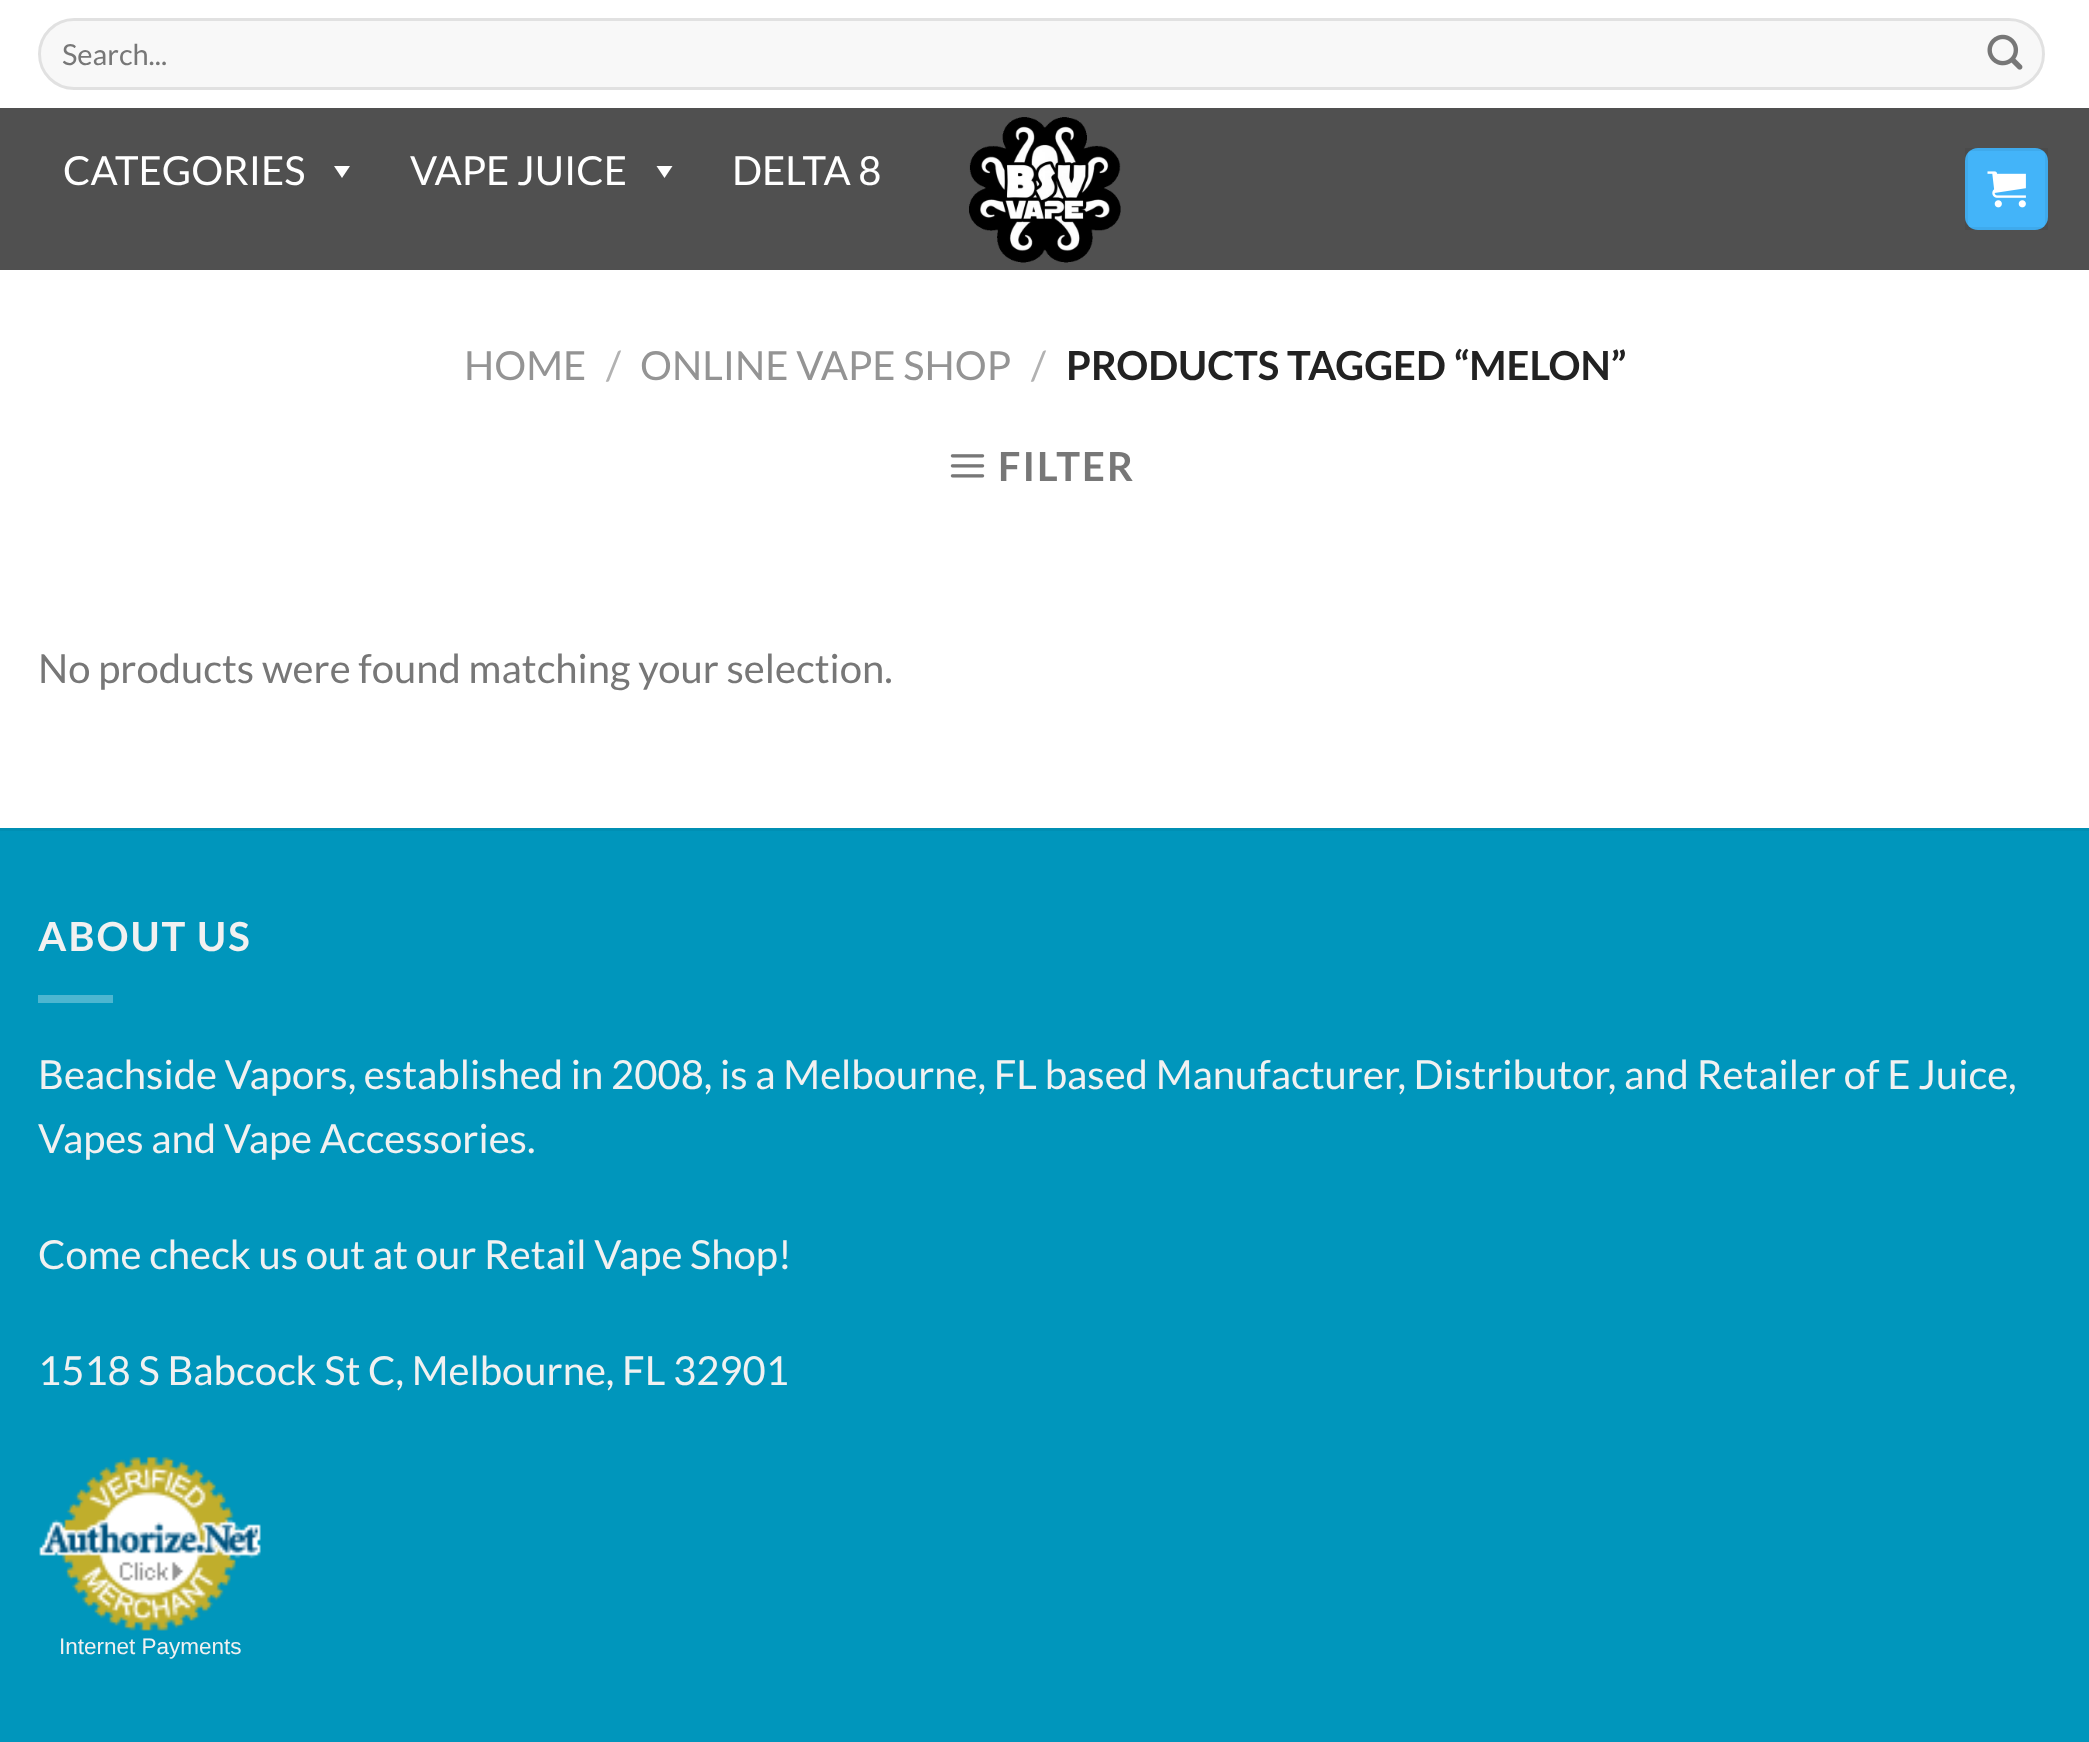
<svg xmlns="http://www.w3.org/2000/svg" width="2089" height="1742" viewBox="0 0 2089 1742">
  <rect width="100%" height="100%" fill="rgb(255,255,255)"/>
  <rect x="38" y="18" width="2007" height="72" rx="36" fill="rgb(248,248,248)"/>
  <rect x="39.5" y="19.5" width="2004" height="69" rx="34.5" fill="none" stroke="rgba(0,0,0,0.09)" stroke-width="3"/>
  <text x="62" y="65" font-family="Lato" font-size="29" fill="rgb(119,119,119)">Search...</text>
  <image x="1987" y="34" width="36" height="36" href="pic1.png"/>
  <rect x="0" y="108" width="2089" height="162" fill="rgb(80,80,80)"/>
  <text x="63" y="185" font-family="Lato" font-size="40" fill="rgb(255,255,255)">CATEGORIES</text>
  <path d="M350 166L342 178L334 166Z" fill="rgb(255,255,255)"/>
  <text x="410" y="185" font-family="Lato" font-size="40" fill="rgb(255,255,255)">VAPE JUICE</text>
  <path d="M672.5 166L664.5 178L656.5 166Z" fill="rgb(255,255,255)"/>
  <text x="732" y="185" font-family="Lato" font-size="40" fill="rgb(255,255,255)">DELTA 8</text>
  <image x="969" y="117" width="152" height="146" href="pic2.png"/>
  <rect x="1965" y="148" width="83" height="82" rx="13" fill="rgb(67,180,249)"/>
  <rect x="1966.5" y="149.5" width="80" height="79" fill="none" stroke="rgba(0,0,0,0.05)" stroke-width="3"/>
  <image x="1987" y="171" width="39" height="37" href="pic3.png"/>
  <text x="464" y="380" font-family="Lato" font-size="40" fill="rgb(148,148,148)">HOME</text>
  <text x="606" y="380" font-family="Lato" font-size="40" fill="rgb(178,178,178)">/</text>
  <text x="640" y="380" font-family="Lato" font-size="40" fill="rgb(148,148,148)">ONLINE VAPE SHOP</text>
  <text x="1031" y="380" font-family="Lato" font-size="40" fill="rgb(178,178,178)">/</text>
  <text x="1066" y="380" font-family="Lato" font-size="40" font-weight="bold" fill="rgb(34,34,34)">PRODUCTS TAGGED “MELON”</text>
  <image x="950" y="454" width="35" height="24" href="pic4.png"/>
  <text x="998" y="481" font-family="Lato" font-size="40" font-weight="bold" letter-spacing="2" fill="rgb(119,119,119)">FILTER</text>
  <text x="38" y="683" font-family="Lato" font-size="40" fill="rgb(119,119,119)">No products were found matching your selection.</text>
  <rect x="0" y="831" width="2089" height="911" fill="rgb(0,150,188)"/>
  <rect x="0" y="828" width="2089" height="3" fill="rgb(0,143,179)"/>
  <text x="38" y="951" font-family="Lato" font-size="40" font-weight="bold" letter-spacing="2" fill="rgb(241,241,241)">ABOUT US</text>
  <rect x="38" y="995" width="75" height="8" fill="rgb(77,182,208)"/>
  <g font-family="Lato" font-size="40" fill="rgb(241,241,241)">
    <text>
      <tspan x="38" y="1089">Beachside Vapors, established in 2008, is a Melbourne, FL based Manufacturer, Distributor, and Retailer of E Juice,</tspan>
      <tspan x="38" y="1153">Vapes and Vape Accessories.</tspan>
    </text>
    <text x="38" y="1269">Come check us out at our Retail Vape Shop!</text>
    <text x="38" y="1385">1518 S Babcock St C, Melbourne, FL 32901</text>
  </g>
  <image x="39" y="1456" width="222" height="175" href="pic5.png"/>
  <text x="59" y="1654" font-family="Liberation Sans" font-size="22.5" fill="rgb(241,241,241)">Internet Payments</text>
</svg>
